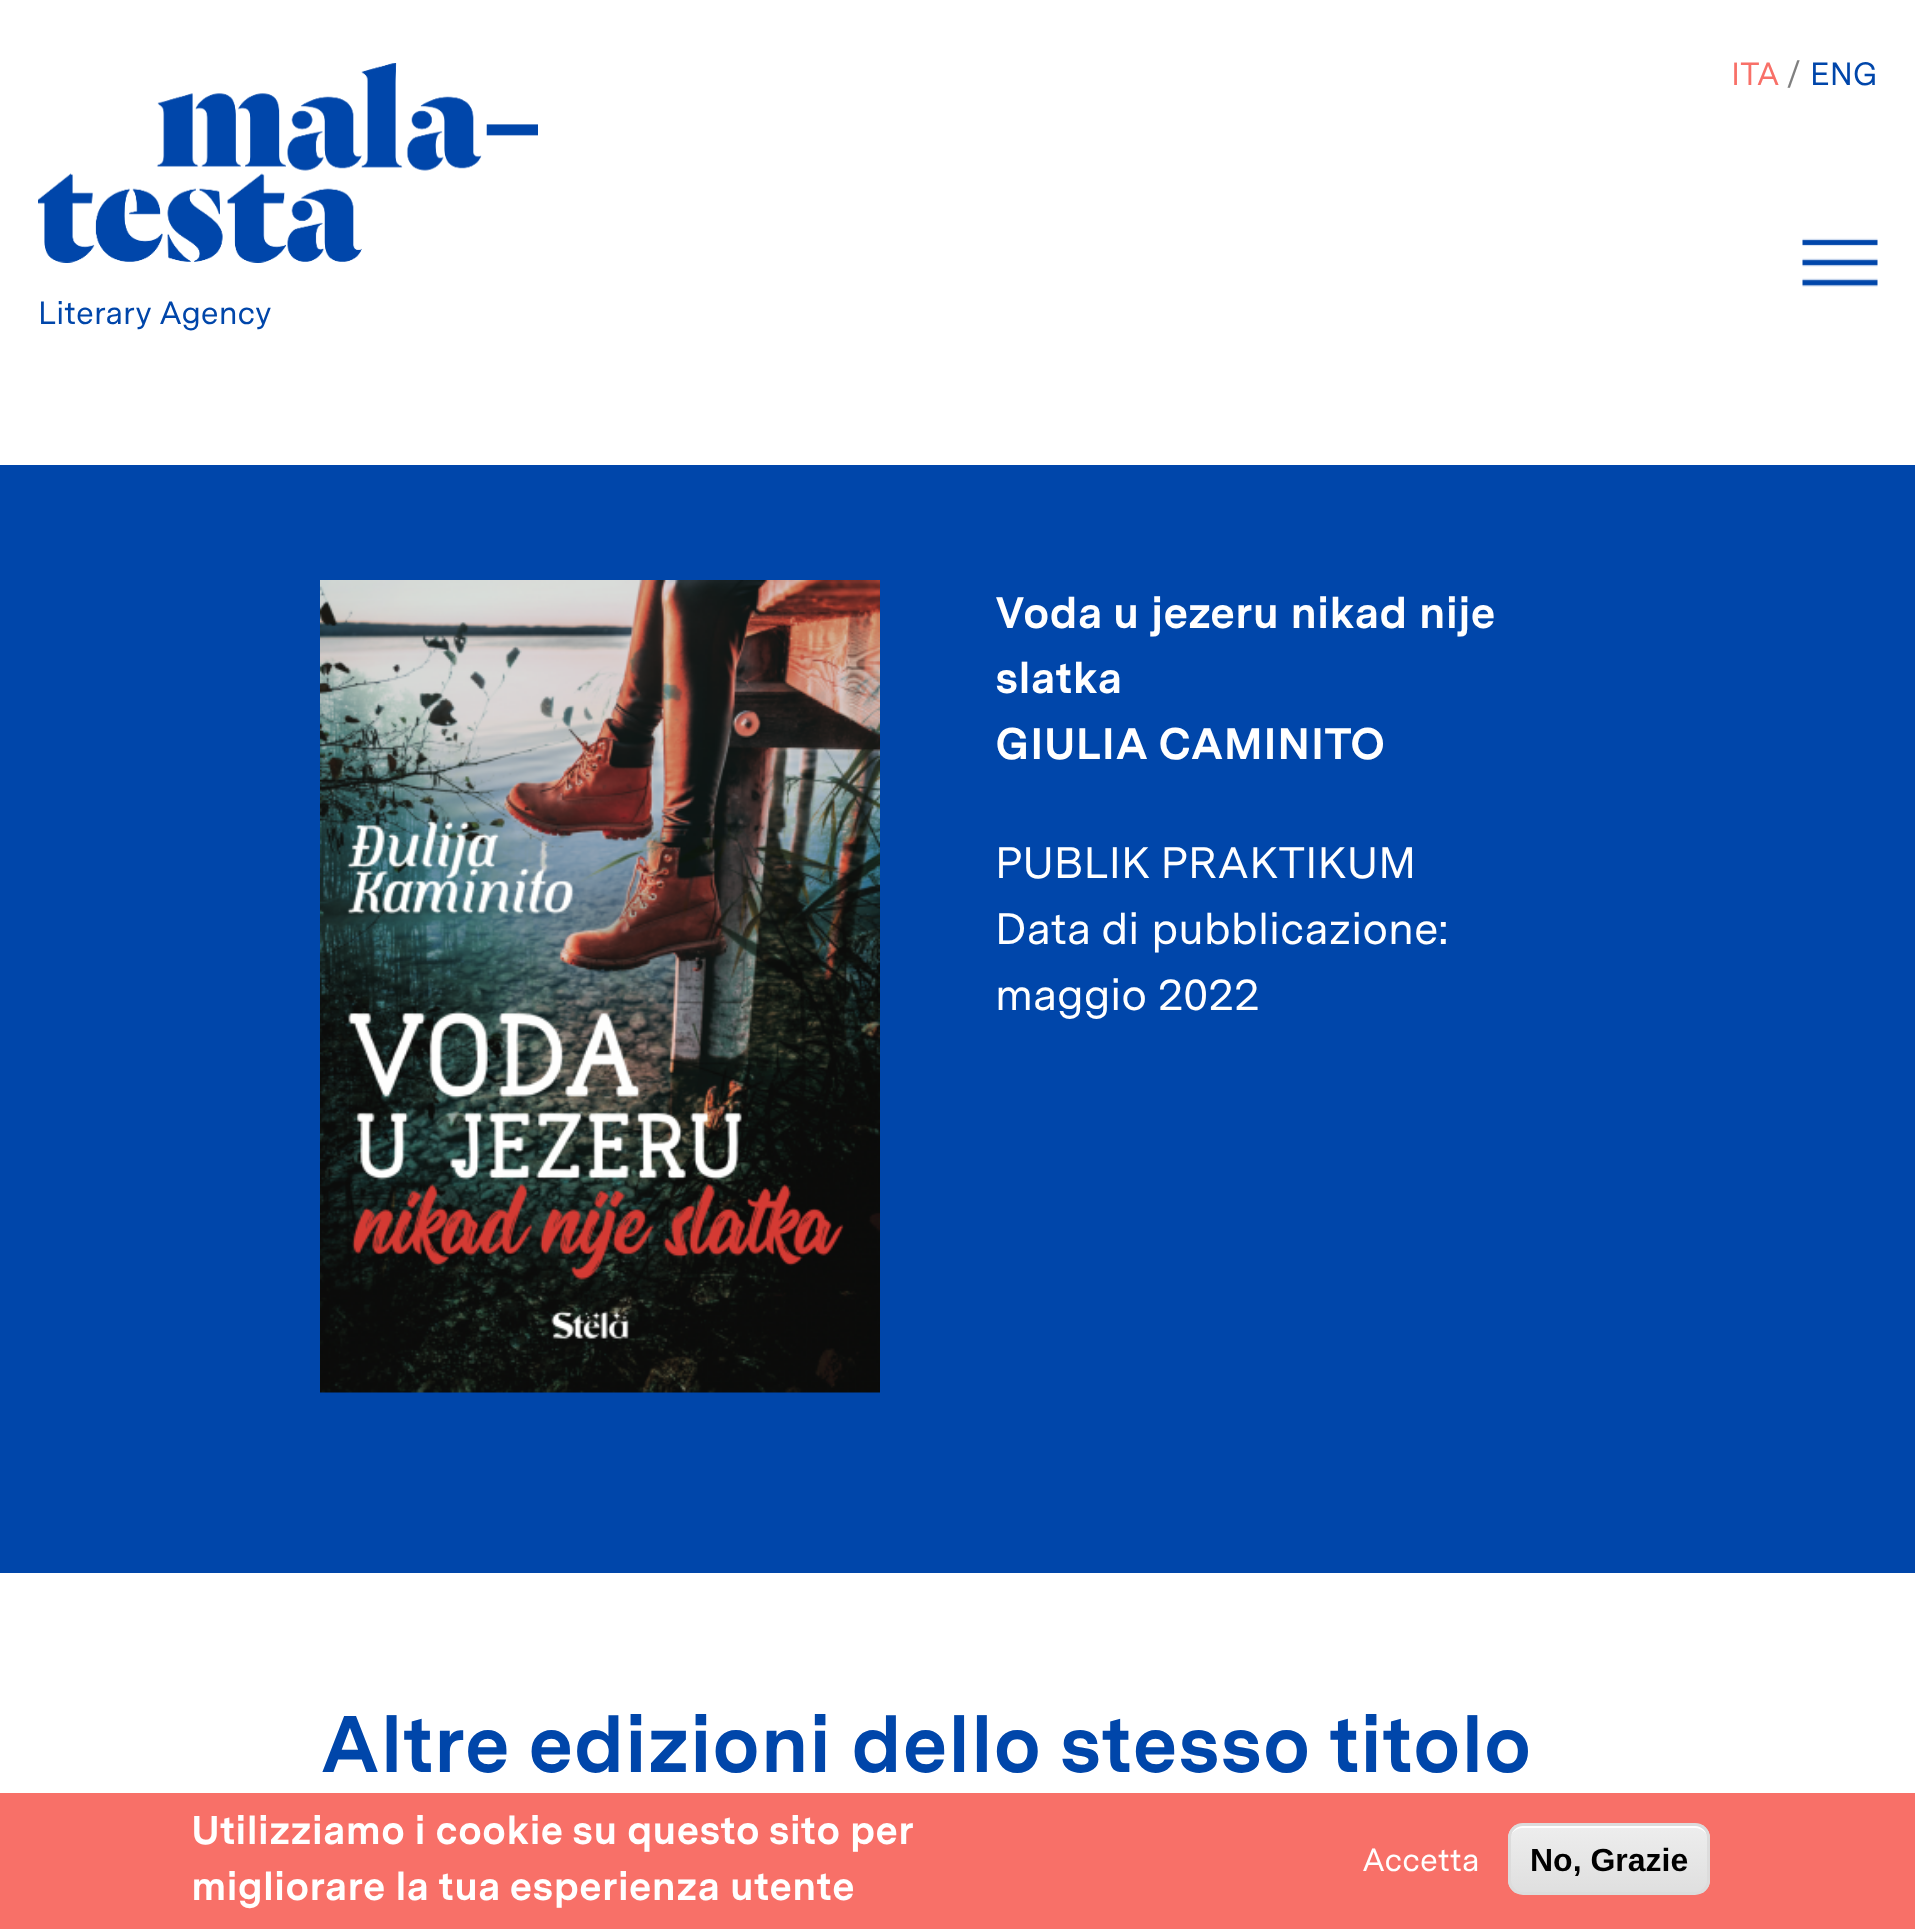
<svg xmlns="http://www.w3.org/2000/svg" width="1915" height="1929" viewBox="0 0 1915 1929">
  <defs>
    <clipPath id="clip1"><rect x="1508" y="1823" width="202" height="72" rx="15"/></clipPath>
    <linearGradient id="g1" gradientUnits="userSpaceOnUse" x1="1609" y1="1825" x2="1609" y2="1893"><stop offset="0.05" stop-color="rgb(237,237,237)"/><stop offset="1" stop-color="rgb(223,223,223)"/></linearGradient>
  </defs>
  <rect width="100%" height="100%" fill="rgb(255,255,255)"/>
  <text x="1731" y="85" font-family="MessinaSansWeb" font-size="32" fill="rgb(248,112,104)">ITA</text>
  <text x="1787" y="85" font-family="MessinaSansWeb" font-size="32" fill="rgb(128,128,128)">/</text>
  <text x="1810" y="85" font-family="MessinaSansWeb" font-size="32" fill="rgb(0,70,170)">ENG</text>
  <image x="1802" y="238" width="76" height="49" href="pic1.png"/>
  <image x="38" y="63" width="500" height="200" href="pic2.png"/>
  <text x="38" y="324" font-family="MessinaSansWeb" font-size="32" fill="rgb(0,70,170)">Literary Agency</text>
  <rect x="0" y="465" width="1915" height="1108" fill="rgb(0,70,170)"/>
  <image x="320" y="580" width="560" height="813" href="pic3.png"/>
  <g font-family="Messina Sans" font-size="44" font-weight="bold" fill="rgb(255,255,255)">
    <text>
      <tspan x="995" y="628" word-spacing="-0.5">Voda u jezeru nikad nije</tspan>
      <tspan x="995" y="693">slatka</tspan>
      <tspan x="995" y="759">GIULIA</tspan>
    </text>
    <text x="1158" y="759">CAMINITO</text>
  </g>
  <g font-family="MessinaSansWeb" font-size="44" fill="rgb(255,255,255)">
    <text>
      <tspan x="995" y="878">PUBLIK PRAKTIKUM</tspan>
      <tspan x="995" y="944">Data di pubblicazione:</tspan>
      <tspan x="995" y="1010">maggio 2022</tspan>
    </text>
  </g>
  <text x="320" y="1772" font-family="Messina Sans" font-size="80" font-weight="bold" fill="rgb(0,70,170)">Altre edizioni dello stesso titolo</text>
  <rect x="0" y="1793" width="1915" height="136" fill="rgb(248,112,104)"/>
  <g font-family="Messina Sans" font-size="40" font-weight="bold" fill="rgb(255,255,255)">
    <text>
      <tspan x="191" y="1844" word-spacing="-0.25">Utilizziamo i cookie su questo sito per</tspan>
      <tspan x="191" y="1900">migliorare la tua esperienza utente</tspan>
    </text>
  </g>
  <text x="1362" y="1871" font-family="MessinaSansWeb" font-size="32" fill="rgb(255,255,255)">Accetta</text>
  <g clip-path="url(#clip1)">
    <rect x="1508" y="1825" width="202" height="68" fill="url(#g1)"/>
  </g>
  <path d="M1522 1828H1695C1702 1828 1708 1833 1708 1840V1838C1708 1831 1702 1825 1695 1825H1523C1516 1825 1510 1831 1510 1838V1840C1510 1833 1516 1828 1522 1828Z" fill="rgb(255,255,255)"/>
  <rect x="1509.5" y="1824.5" width="199" height="69" rx="13.5" fill="none" stroke="rgb(220,220,220)" stroke-width="3"/>
  <text x="1530" y="1871" font-family="Liberation Sans" font-size="32" font-weight="bold" fill="rgb(0,0,0)">No, Grazie</text>
</svg>
